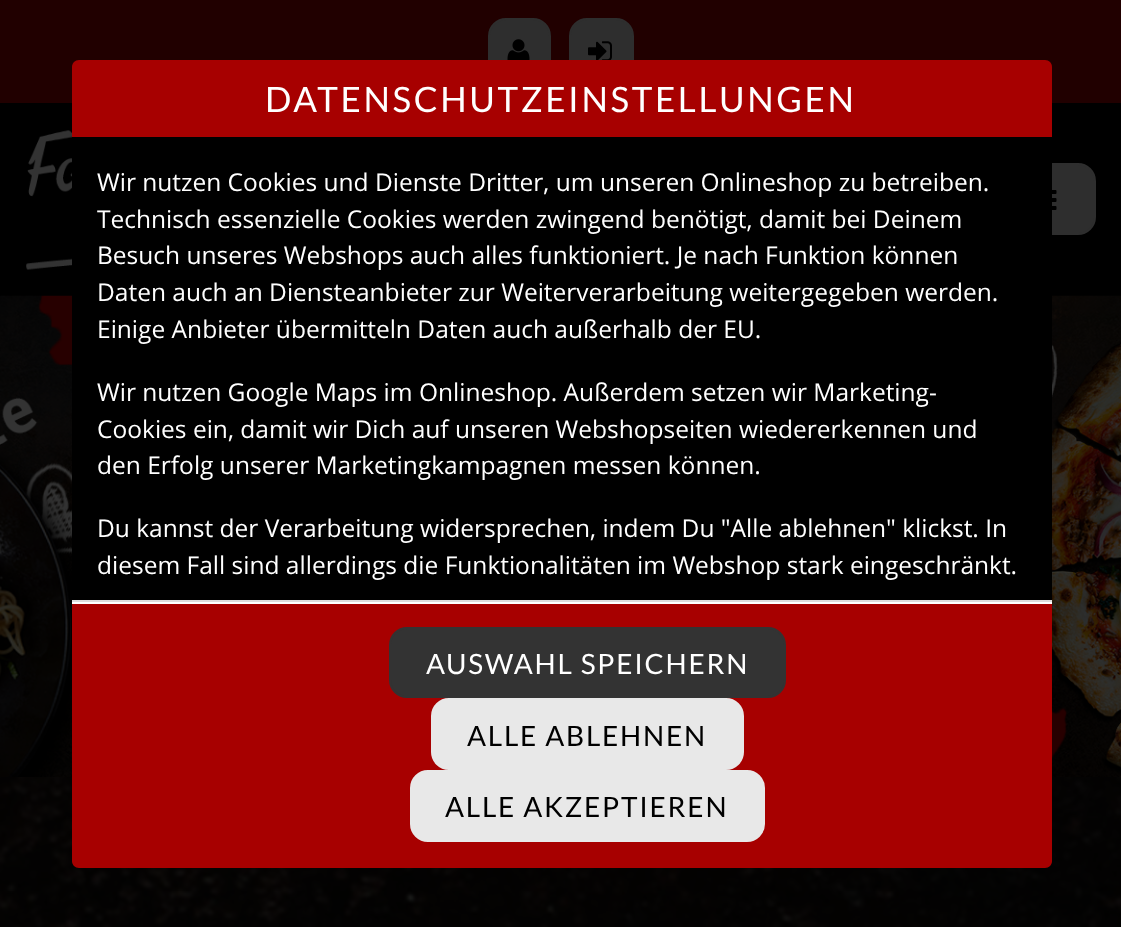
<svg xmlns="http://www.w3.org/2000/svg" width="1121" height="927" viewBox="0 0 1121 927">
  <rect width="100%" height="100%" fill="rgb(255,255,255)"/>
  <image x="0" y="777" width="1121" height="150" href="pic1.png"/>
  <rect x="0" y="103" width="1121" height="193" fill="rgb(0,0,0)"/>
  <rect x="0" y="0" width="1121" height="103" fill="rgb(33,0,0)"/>
  <rect x="489" y="19" width="61" height="66" rx="17" fill="rgb(46,46,46)" stroke="rgb(46,46,46)" stroke-width="2"/>
  <image x="507" y="39" width="23" height="21" href="pic2.png"/>
  <rect x="570" y="19" width="63" height="66" rx="17" fill="rgb(46,46,46)" stroke="rgb(46,46,46)" stroke-width="2"/>
  <image x="588" y="41" width="24" height="19" href="pic3.png"/>
  <image x="26" y="130" width="46" height="140" href="pic4.png"/>
  <rect x="997" y="164" width="98" height="70" rx="17" fill="rgb(46,46,46)" stroke="rgb(46,46,46)" stroke-width="2"/>
  <image x="1052" y="190" width="5" height="20" href="pic5.png"/>
  <image x="0" y="295" width="1121" height="482" href="pic6.png"/>
  <path d="M79 60H1045C1049 60 1052 63 1052 67V137H72V67C72 63 75 60 79 60Z" fill="rgb(167,0,0)"/>
  <text x="265" y="112" font-family="Lato" font-size="35" letter-spacing="2.6" fill="rgb(255,255,255)">DATENSCHUTZEINSTELLUNGEN</text>
  <rect x="72" y="163" width="980" height="437" fill="rgb(0,0,0)"/>
  <g font-family="Open Sans" font-size="24.5" fill="rgb(255,255,255)">
    <text>
      <tspan x="97" y="191">Wir nutzen Cookies und Dienste Dritter, um unseren Onlineshop zu betreiben.</tspan>
      <tspan x="97" y="228">Technisch essenzielle Cookies werden zwingend benötigt, damit bei Deinem</tspan>
      <tspan x="97" y="264">Besuch unseres Webshops auch alles funktioniert. Je nach Funktion können</tspan>
      <tspan x="97" y="301">Daten auch an Diensteanbieter zur Weiterverarbeitung weitergegeben werden.</tspan>
      <tspan x="97" y="338">Einige Anbieter übermitteln Daten auch außerhalb der EU.</tspan>
    </text>
    <text>
      <tspan x="97" y="401">Wir nutzen Google Maps im Onlineshop. Außerdem setzen wir Marketing-</tspan>
      <tspan x="97" y="438">Cookies ein, damit wir Dich auf unseren Webshopseiten wiedererkennen und</tspan>
      <tspan x="97" y="474">den Erfolg unserer Marketingkampagnen messen können.</tspan>
    </text>
    <text>
      <tspan x="97" y="537">Du kannst der Verarbeitung widersprechen, indem Du "Alle ablehnen" klickst. In</tspan>
      <tspan x="97" y="574">diesem Fall sind allerdings die Funktionalitäten im Webshop stark eingeschränkt.</tspan>
    </text>
  </g>
  <path d="M72 600H1052V861C1052 865 1049 868 1045 868H79C75 868 72 865 72 861Z" fill="rgb(167,0,0)"/>
  <rect x="72" y="602" width="980" height="2" fill="rgb(255,255,255)"/>
  <rect x="72" y="600" width="980" height="2" fill="rgb(221,221,221)"/>
  <rect x="390" y="628" width="395" height="69" rx="17" fill="rgb(51,51,51)" stroke="rgb(51,51,51)" stroke-width="2"/>
  <text x="426" y="674" font-family="Lato" font-size="28" letter-spacing="1.75" fill="rgb(255,255,255)">AUSWAHL SPEICHERN</text>
  <rect x="432" y="699" width="311" height="70" rx="17" fill="rgb(232,232,232)" stroke="rgb(232,232,232)" stroke-width="2"/>
  <text x="467" y="746" font-family="Lato" font-size="28" letter-spacing="1.75" fill="rgb(0,0,0)">ALLE ABLEHNEN</text>
  <rect x="411" y="771" width="353" height="70" rx="17" fill="rgb(232,232,232)" stroke="rgb(232,232,232)" stroke-width="2"/>
  <text x="445" y="817" font-family="Lato" font-size="28" letter-spacing="1.75" fill="rgb(0,0,0)">ALLE AKZEPTIEREN</text>
</svg>
